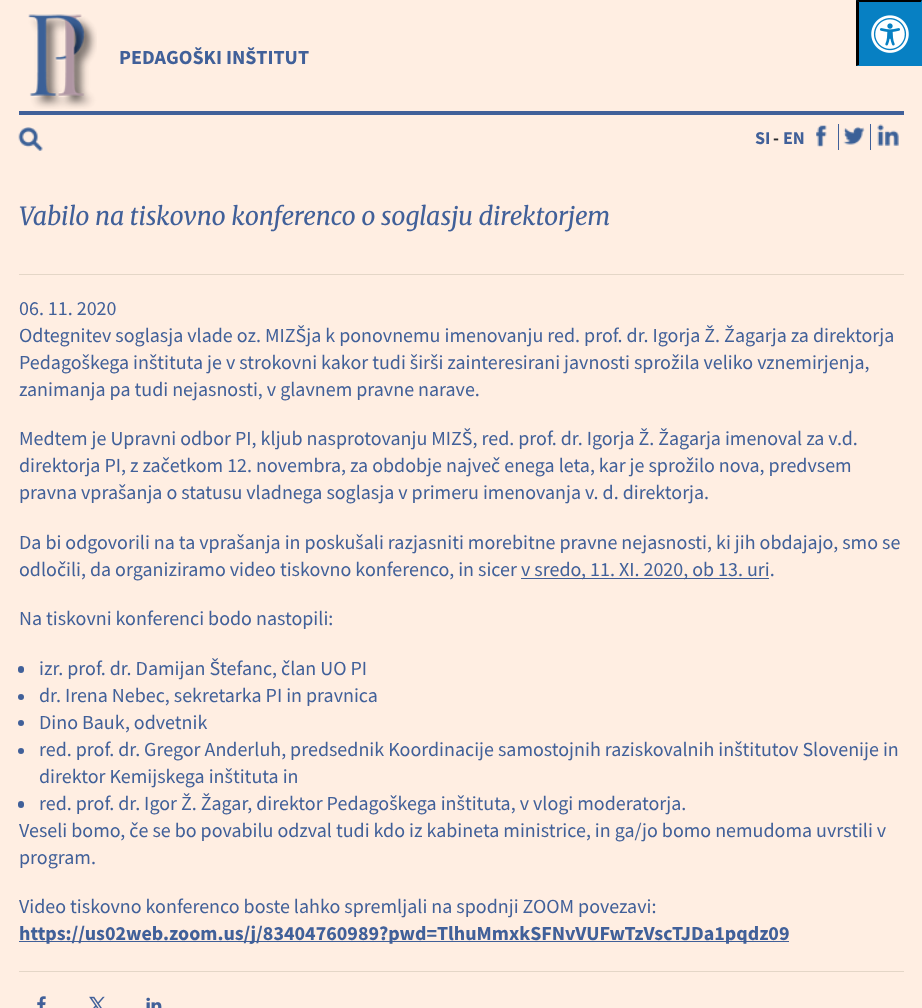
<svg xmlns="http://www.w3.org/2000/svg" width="922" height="1008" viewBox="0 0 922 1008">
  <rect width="100%" height="100%" fill="rgb(255,238,226)"/>
  <rect x="856" y="0" width="66" height="66" fill="rgb(7,128,195)"/>
  <path d="M856 0H922L921 2H859Z" fill="rgb(0,0,0)"/>
  <path d="M922 0V66L921 65V2Z" fill="rgb(7,128,195)"/>
  <path d="M856 66V0L859 2V65Z" fill="rgb(0,0,0)"/>
  <image x="871" y="15" width="38" height="38" href="pic1.png"/>
  <image x="28" y="14" width="69" height="95" href="pic2.png"/>
  <text x="119" y="64" font-family="Source Sans Pro" font-size="20" font-weight="bold" fill="rgb(65,96,153)">PEDAGOŠKI INŠTITUT</text>
  <rect x="19" y="111" width="885" height="4" fill="rgb(65,96,153)"/>
  <image x="18" y="127" width="25" height="24" href="pic3.png"/>
  <text x="755" y="144" font-family="Source Sans Pro" font-size="18" font-weight="bold" fill="rgb(65,96,153)">SI</text>
  <text x="773" y="144" font-family="Source Sans Pro" font-size="18" font-weight="bold" fill="rgb(41,43,44)">-</text>
  <text x="783" y="144" font-family="Source Sans Pro" font-size="18" font-weight="bold" fill="rgb(65,96,153)">EN</text>
  <image x="816" y="125" width="11" height="22" href="pic4.png"/>
  <rect x="838" y="124" width="1" height="26" fill="rgb(65,96,153)"/>
  <image x="843" y="126" width="22" height="19" href="pic5.png"/>
  <rect x="870" y="124" width="1" height="26" fill="rgb(65,96,153)"/>
  <image x="877" y="124" width="22" height="22" href="pic6.png"/>
  <rect x="19" y="274" width="885" height="1" fill="rgb(228,214,199)"/>
  <text x="19" y="225" font-family="Merriweather" font-size="25" font-style="italic" fill="rgb(65,96,153)">Vabilo na tiskovno konferenco o soglasju direktorjem</text>
  <g font-family="Source Sans Pro" font-size="20" fill="rgb(65,96,153)">
    <text>
      <tspan x="19" y="315">06. 11. 2020</tspan>
      <tspan x="19" y="342">Odtegnitev soglasja vlade oz. MIZŠja k ponovnemu imenovanju red. prof. dr. Igorja Ž. Žagarja za direktorja</tspan>
      <tspan x="19" y="369">Pedagoškega inštituta je v strokovni kakor tudi širši zainteresirani javnosti sprožila veliko vznemirjenja,</tspan>
      <tspan x="19" y="396">zanimanja pa tudi nejasnosti, v glavnem pravne narave.</tspan>
    </text>
    <text>
      <tspan x="19" y="445">Medtem je Upravni odbor PI, kljub nasprotovanju MIZŠ, red. prof. dr. Igorja Ž. Žagarja imenoval za v.d.</tspan>
      <tspan x="19" y="472">direktorja PI, z začetkom 12. novembra, za obdobje največ enega leta, kar je sprožilo nova, predvsem</tspan>
      <tspan x="19" y="499">pravna vprašanja o statusu vladnega soglasja v primeru imenovanja v. d. direktorja.</tspan>
    </text>
    <text>
      <tspan x="19" y="549">Da bi odgovorili na ta vprašanja in poskušali razjasniti morebitne pravne nejasnosti, ki jih obdajajo, smo se</tspan>
      <tspan x="19" y="576">odločili, da organiziramo video tiskovno konferenco, in sicer</tspan>
    </text>
  </g>
  <rect x="521" y="578" width="248" height="1" fill="rgb(65,96,153)"/>
  <g font-family="Source Sans Pro" font-size="20" fill="rgb(65,96,153)">
    <text x="521" y="576">v sredo, 11. XI. 2020, ob 13. uri.</text>
    <text x="19" y="625">Na tiskovni konferenci bodo nastopili:</text>
  </g>
  <rect x="18" y="666" width="6" height="7" rx="3" fill="rgb(65,96,153)"/>
  <text x="39" y="675" font-family="Source Sans Pro" font-size="20" fill="rgb(65,96,153)">izr. prof. dr. Damijan Štefanc, član UO PI</text>
  <circle cx="21" cy="697" r="3" fill="rgb(65,96,153)"/>
  <text x="39" y="702" font-family="Source Sans Pro" font-size="20" fill="rgb(65,96,153)">dr. Irena Nebec, sekretarka PI in pravnica</text>
  <circle cx="21" cy="723" r="3" fill="rgb(65,96,153)"/>
  <text x="39" y="729" font-family="Source Sans Pro" font-size="20" fill="rgb(65,96,153)">Dino Bauk, odvetnik</text>
  <circle cx="21" cy="751" r="3" fill="rgb(65,96,153)"/>
  <g font-family="Source Sans Pro" font-size="20" fill="rgb(65,96,153)">
    <text>
      <tspan x="39" y="756">red. prof. dr. Gregor Anderluh, predsednik Koordinacije samostojnih raziskovalnih inštitutov Slovenije in</tspan>
      <tspan x="39" y="783">direktor Kemijskega inštituta in</tspan>
    </text>
  </g>
  <rect x="18" y="801" width="6" height="7" rx="3" fill="rgb(65,96,153)"/>
  <g font-family="Source Sans Pro" font-size="20" fill="rgb(65,96,153)">
    <text x="39" y="810">red. prof. dr. Igor Ž. Žagar, direktor Pedagoškega inštituta, v vlogi moderatorja.</text>
    <text>
      <tspan x="19" y="837">Veseli bomo, če se bo povabilu odzval tudi kdo iz kabineta ministrice, in ga/jo bomo nemudoma uvrstili v</tspan>
      <tspan x="19" y="864">program.</tspan>
    </text>
    <text x="19" y="913">Video tiskovno konferenco boste lahko spremljali na spodnji ZOOM povezavi:</text>
  </g>
  <rect x="19" y="941" width="770" height="1" fill="rgb(65,96,153)"/>
  <text x="19" y="940" font-family="Source Sans Pro" font-size="20" font-weight="bold" fill="rgb(65,96,153)">https://us02web.zoom.us/j/83404760989?pwd=TlhuMmxkSFNvVUFwTzVscTJDa1pqdz09</text>
  <rect x="19" y="971" width="885" height="1" fill="rgb(228,214,199)"/>
  <image x="37" y="996" width="9" height="12" href="pic7.png"/>
  <image x="89" y="996" width="16" height="12" href="pic8.png"/>
  <image x="146" y="997" width="16" height="11" href="pic9.png"/>
</svg>
